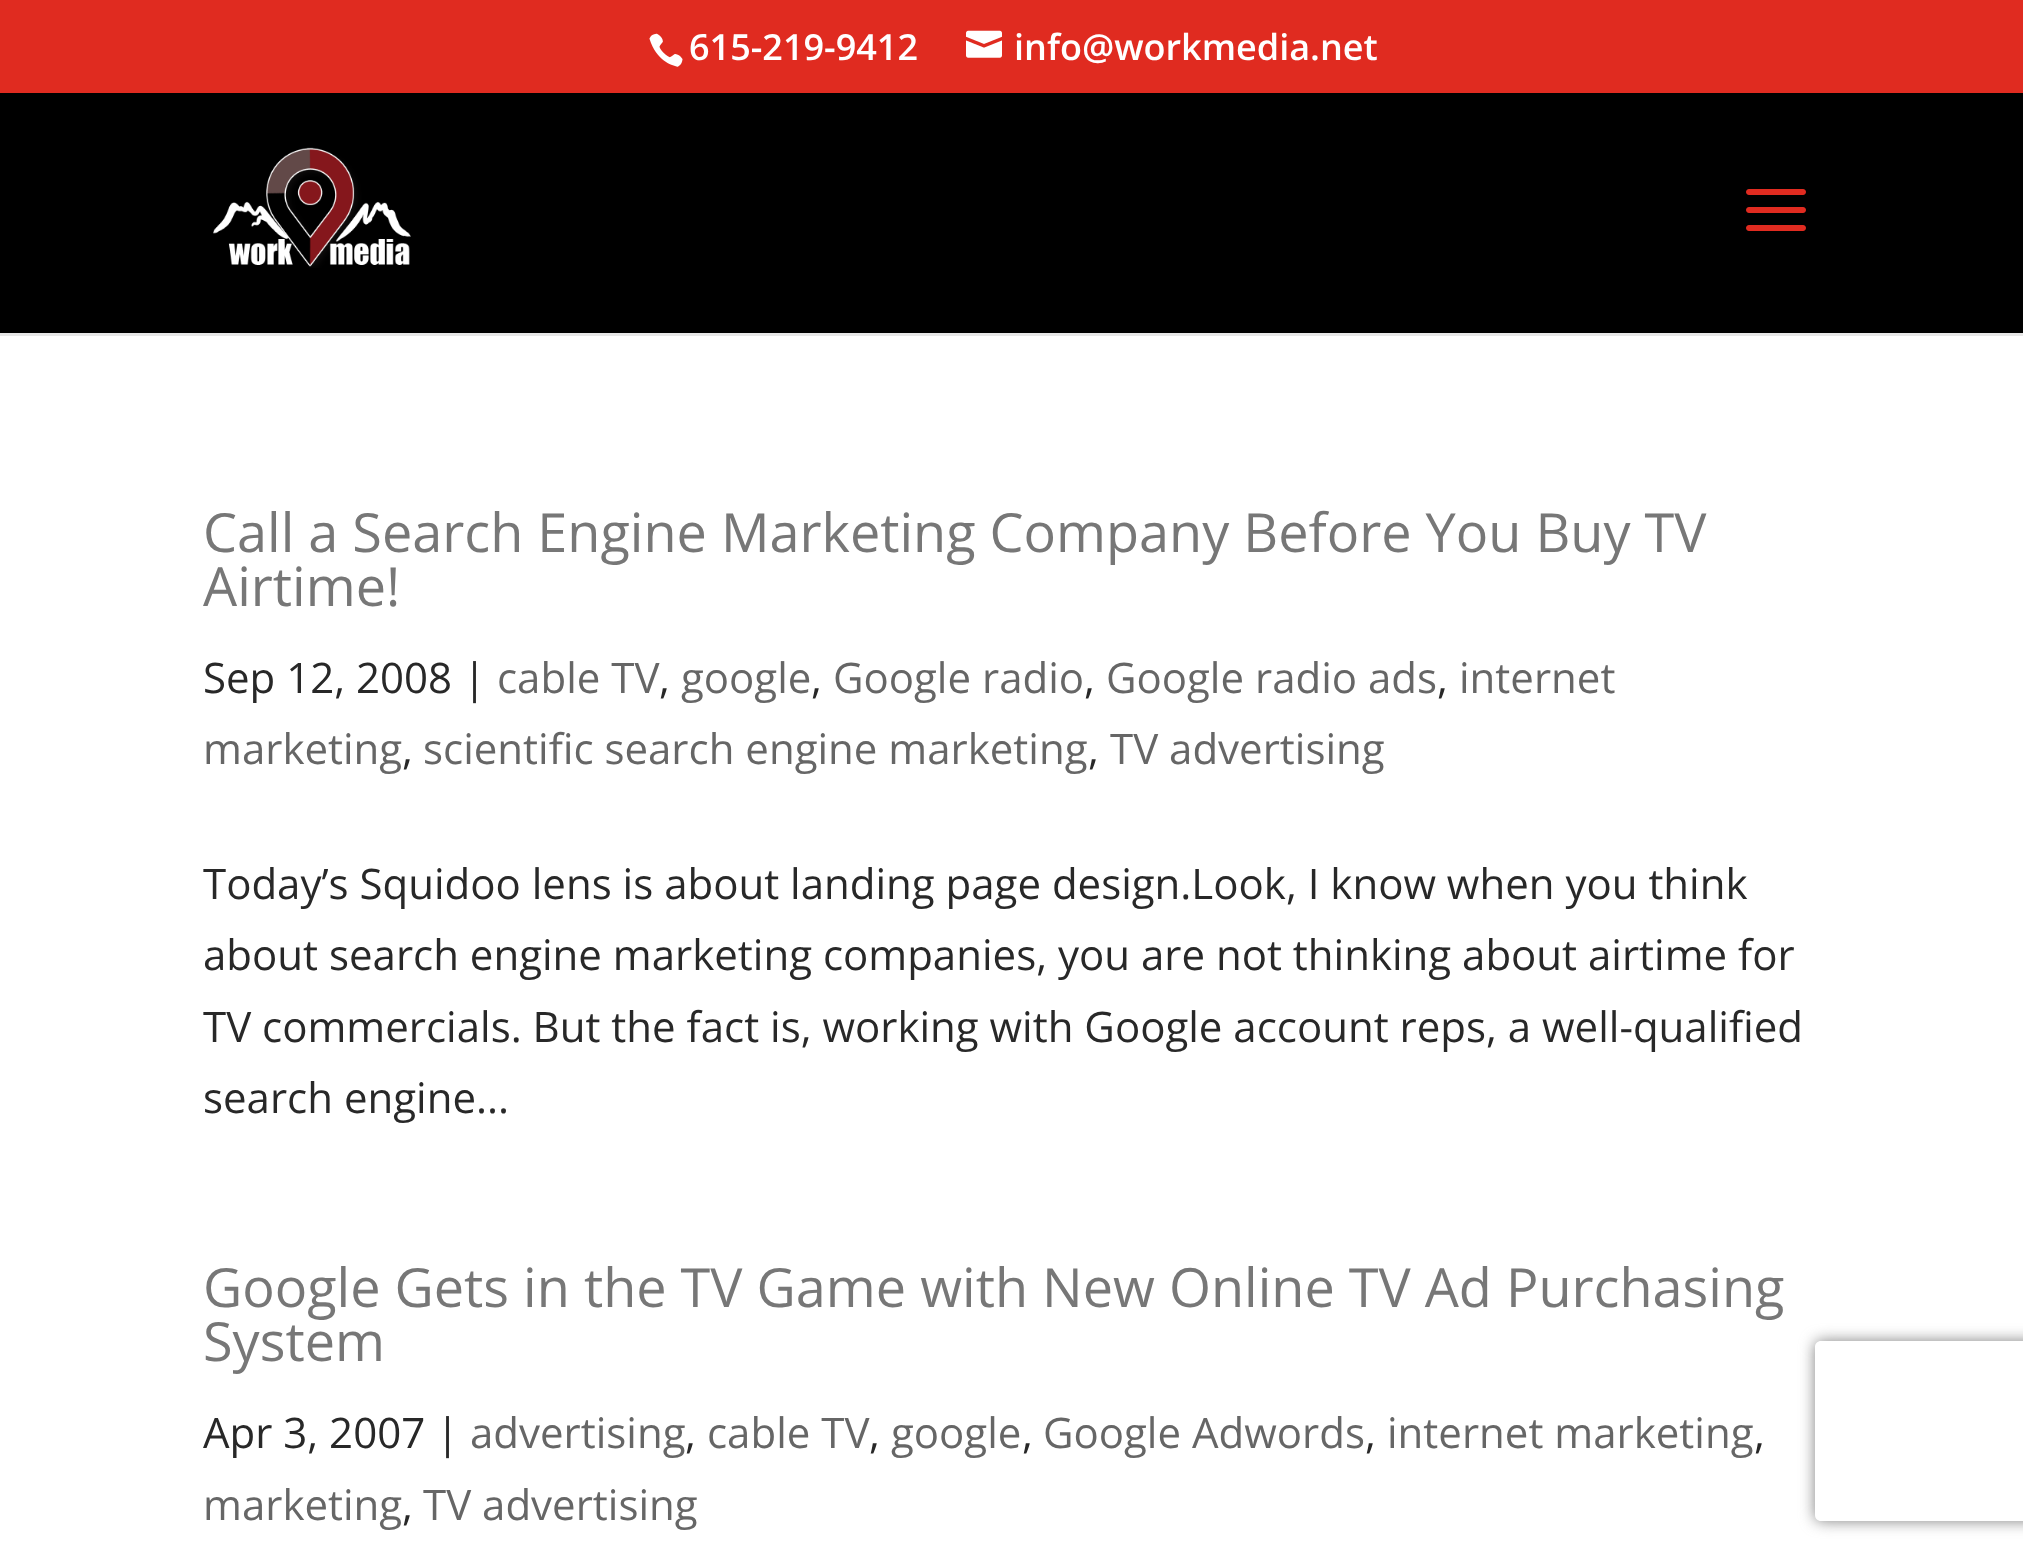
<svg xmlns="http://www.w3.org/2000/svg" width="2023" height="1563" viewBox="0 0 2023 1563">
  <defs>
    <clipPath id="clip1"><path d="M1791 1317H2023V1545H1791ZM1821 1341H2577C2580.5 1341 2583 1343.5 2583 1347V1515C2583 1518.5 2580.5 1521 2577 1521H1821C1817.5 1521 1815 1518.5 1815 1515V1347C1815 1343.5 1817.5 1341 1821 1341Z" clip-rule="evenodd"/></clipPath>
  </defs>
  <rect width="100%" height="100%" fill="rgb(255,255,255)"/>
  <rect x="0" y="0" width="2023" height="93" fill="rgb(224,43,32)"/>
  <image x="649" y="33" width="34" height="34" href="pic1.png"/>
  <text x="689" y="60" font-family="Open Sans" font-size="36" font-weight="600" fill="rgb(255,255,255)">615-219-9412</text>
  <image x="966" y="30" width="36" height="28" href="pic2.png"/>
  <text x="1014" y="60" font-family="Open Sans" font-size="36" font-weight="600" fill="rgb(255,255,255)">info@workmedia.net</text>
  <rect x="0" y="333" width="2023" height="3" fill="rgb(230,230,230)"/>
  <rect x="0" y="93" width="2023" height="240" fill="rgb(0,0,0)"/>
  <image x="213" y="147" width="198" height="121" href="pic3.png"/>
  <image x="1746" y="189" width="60" height="42" href="pic4.png"/>
  <g font-family="Open Sans" font-size="54" fill="rgb(119,119,119)">
    <text>
      <tspan x="203" y="552">Call a Search Engine Marketing Company Before You Buy TV</tspan>
      <tspan x="203" y="606">Airtime!</tspan>
    </text>
  </g>
  <text x="203" y="693" font-family="Open Sans" font-size="42" fill="rgb(40,40,40)">Sep 12, 2008 |</text>
  <text x="497" y="693" font-family="Open Sans" font-size="42" fill="rgb(102,102,102)">cable TV</text>
  <text x="659" y="693" font-family="Open Sans" font-size="42" fill="rgb(40,40,40)">,</text>
  <text x="681" y="693" font-family="Open Sans" font-size="42" fill="rgb(102,102,102)">google</text>
  <text x="811" y="693" font-family="Open Sans" font-size="42" fill="rgb(40,40,40)">,</text>
  <text x="833" y="693" font-family="Open Sans" font-size="42" fill="rgb(102,102,102)">Google radio</text>
  <text x="1084" y="693" font-family="Open Sans" font-size="42" fill="rgb(40,40,40)">,</text>
  <text x="1106" y="693" font-family="Open Sans" font-size="42" fill="rgb(102,102,102)">Google radio ads</text>
  <text x="1437" y="693" font-family="Open Sans" font-size="42" fill="rgb(40,40,40)">,</text>
  <g font-family="Open Sans" font-size="42" fill="rgb(102,102,102)">
    <text x="1459" y="693">internet</text>
    <text x="203" y="764">marketing</text>
  </g>
  <text x="402" y="764" font-family="Open Sans" font-size="42" fill="rgb(40,40,40)">,</text>
  <text x="423" y="764" font-family="Open Sans" font-size="42" fill="rgb(102,102,102)">scientific search engine marketing</text>
  <text x="1088" y="764" font-family="Open Sans" font-size="42" fill="rgb(40,40,40)">,</text>
  <text x="1110" y="764" font-family="Open Sans" font-size="42" fill="rgb(102,102,102)">TV advertising</text>
  <g font-family="Open Sans" font-size="42" fill="rgb(40,40,40)">
    <text>
      <tspan x="203" y="899">Today’s Squidoo lens is about landing page design.Look, I know when you think</tspan>
      <tspan x="203" y="970">about search engine marketing companies, you are not thinking about airtime for</tspan>
      <tspan x="203" y="1042">TV commercials. But the fact is, working with Google account reps, a well-qualified</tspan>
      <tspan x="203" y="1113">search engine...</tspan>
    </text>
  </g>
  <g font-family="Open Sans" font-size="54" fill="rgb(119,119,119)">
    <text>
      <tspan x="203" y="1307">Google Gets in the TV Game with New Online TV Ad Purchasing</tspan>
      <tspan x="203" y="1361">System</tspan>
    </text>
  </g>
  <text x="203" y="1448" font-family="Open Sans" font-size="42" fill="rgb(40,40,40)">Apr 3, 2007 |</text>
  <text x="470" y="1448" font-family="Open Sans" font-size="42" fill="rgb(102,102,102)">advertising</text>
  <text x="685" y="1448" font-family="Open Sans" font-size="42" fill="rgb(40,40,40)">,</text>
  <text x="707" y="1448" font-family="Open Sans" font-size="42" fill="rgb(102,102,102)">cable TV</text>
  <text x="869" y="1448" font-family="Open Sans" font-size="42" fill="rgb(40,40,40)">,</text>
  <text x="891" y="1448" font-family="Open Sans" font-size="42" fill="rgb(102,102,102)">google</text>
  <text x="1022" y="1448" font-family="Open Sans" font-size="42" fill="rgb(40,40,40)">,</text>
  <text x="1043" y="1448" font-family="Open Sans" font-size="42" fill="rgb(102,102,102)">Google Adwords</text>
  <text x="1365" y="1448" font-family="Open Sans" font-size="42" fill="rgb(40,40,40)">,</text>
  <text x="1387" y="1448" font-family="Open Sans" font-size="42" fill="rgb(102,102,102)">internet marketing</text>
  <text x="1754" y="1448" font-family="Open Sans" font-size="42" fill="rgb(40,40,40)">,</text>
  <text x="203" y="1520" font-family="Open Sans" font-size="42" fill="rgb(102,102,102)">marketing</text>
  <text x="402" y="1520" font-family="Open Sans" font-size="42" fill="rgb(40,40,40)">,</text>
  <text x="423" y="1520" font-family="Open Sans" font-size="42" fill="rgb(102,102,102)">TV advertising</text>
  <g clip-path="url(#clip1)">
    <rect x="1815" y="1341" width="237" height="180" rx="6" fill="rgb(128,128,128)" filter="blur(7.5px)"/>
  </g>
</svg>
